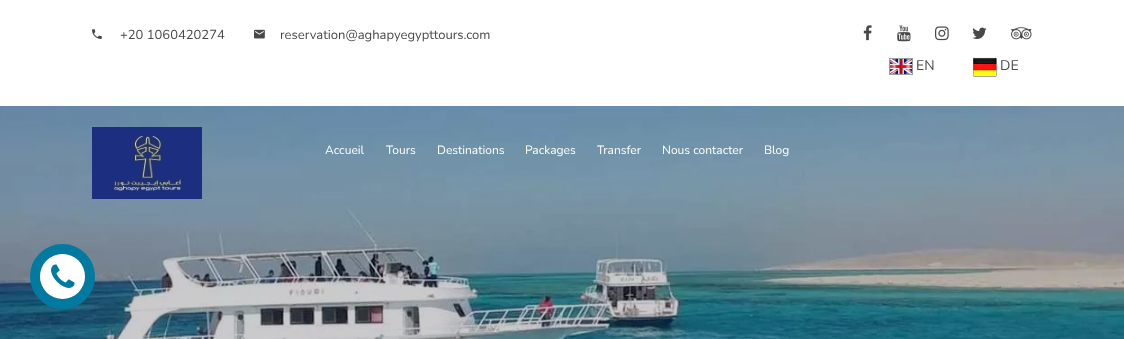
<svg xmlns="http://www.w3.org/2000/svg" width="1124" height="339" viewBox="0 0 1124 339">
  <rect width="100%" height="100%" fill="rgb(255,255,255)"/>
  <image x="92" y="29" width="10" height="10" href="pic1.png"/>
  <text x="120" y="39" font-family="Nunito" font-size="13" fill="rgb(72,72,72)">+20 1060420274</text>
  <image x="254" y="29" width="11" height="10" href="pic2.png"/>
  <text x="280" y="39" font-family="Nunito" font-size="13" fill="rgb(72,72,72)">reservation@aghapyegypttours.com</text>
  <image x="863" y="25" width="9" height="16" href="pic3.png"/>
  <image x="897" y="25" width="14" height="17" href="pic4.png"/>
  <image x="935" y="26" width="14" height="15" href="pic5.png"/>
  <image x="972" y="27" width="15" height="12" href="pic6.png"/>
  <image x="1011" y="27" width="21" height="13" href="pic7.png"/>
  <image x="889" y="58" width="24" height="17" href="pic8.png"/>
  <text x="916" y="70" font-family="Nunito" font-size="14" fill="rgb(72,72,72)">EN</text>
  <image x="973" y="57" width="24" height="20" href="pic9.png"/>
  <text x="1000" y="70" font-family="Nunito" font-size="14" fill="rgb(72,72,72)">DE</text>
  <image x="0" y="106" width="1124" height="233" href="pic10.png"/>
  <image x="92" y="127" width="110" height="72" href="pic11.png"/>
  <g font-family="Nunito" font-size="12" fill="rgb(255,255,255)">
    <text x="325" y="154">Accueil</text>
    <text x="386" y="154">Tours</text>
    <text x="437" y="154">Destinations</text>
    <text x="525" y="154">Packages</text>
    <text x="597" y="154">Transfer</text>
    <text x="662" y="154">Nous contacter</text>
    <text x="764" y="154">Blog</text>
  </g>
  <circle cx="62.5" cy="276.5" r="27.5" fill="none" stroke="rgb(0,122,160)" stroke-width="10"/>
  <circle cx="62.5" cy="276.5" r="22.5" fill="rgb(255,255,255)"/>
  <image x="51" y="264" width="24" height="24" href="pic12.png"/>
</svg>
